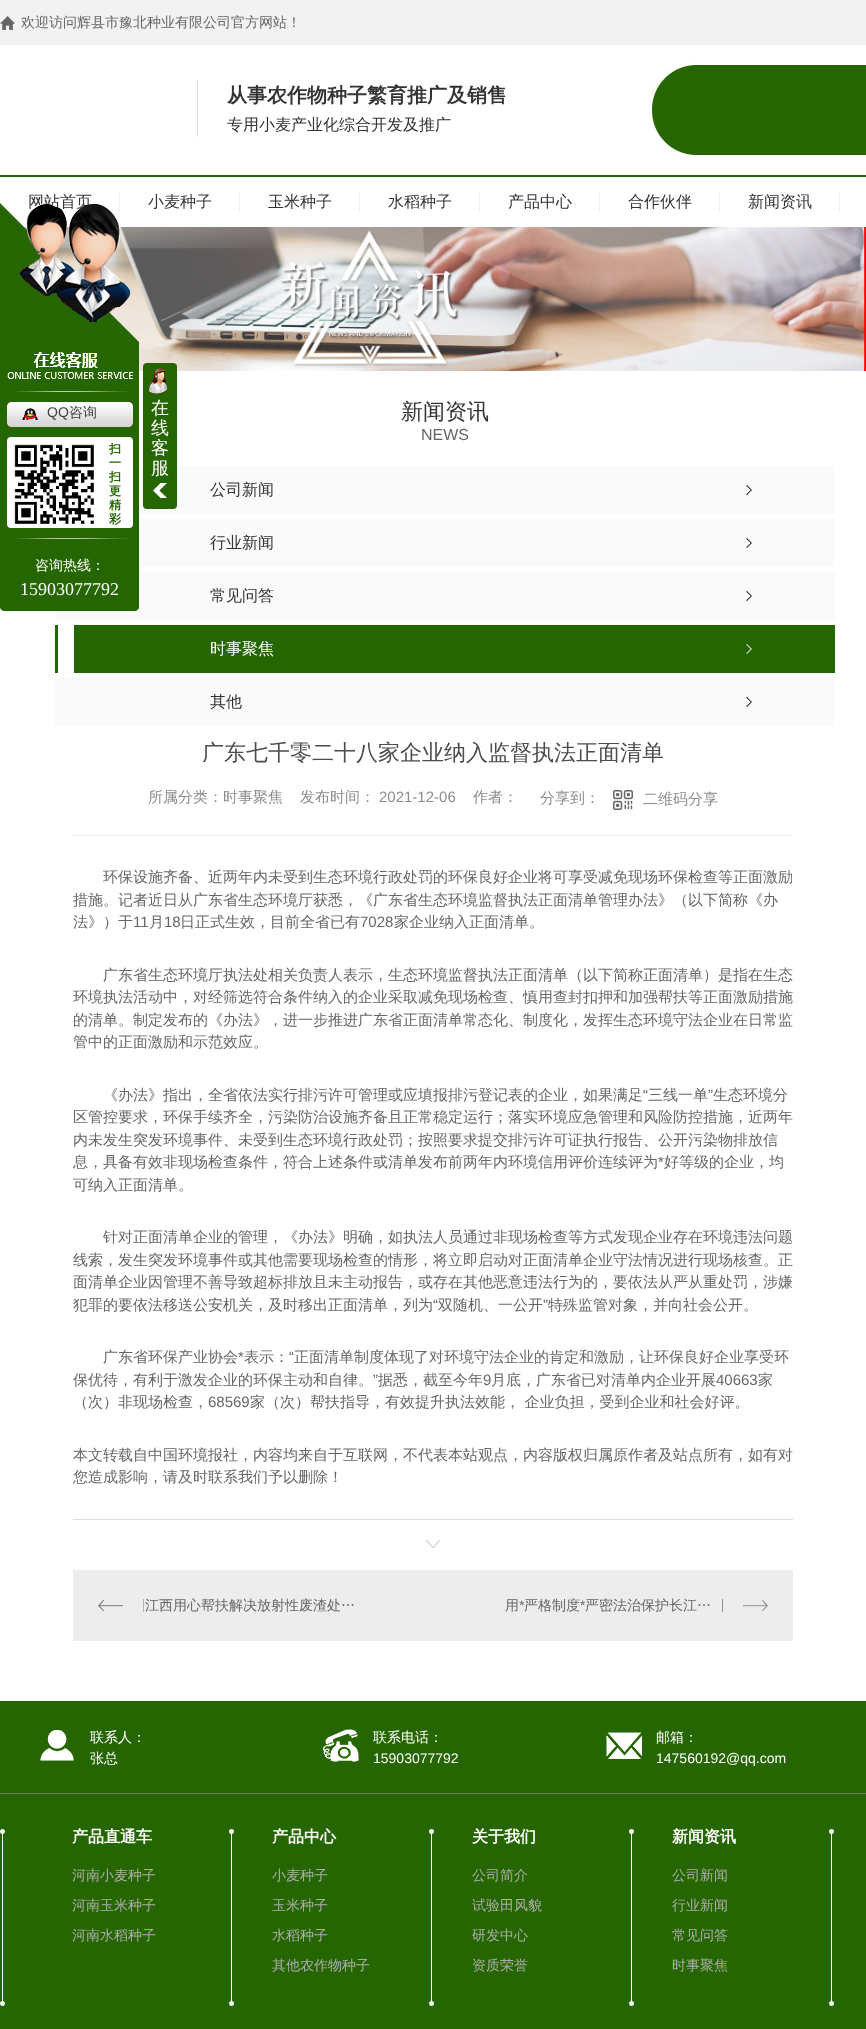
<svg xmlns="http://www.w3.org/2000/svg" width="866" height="2029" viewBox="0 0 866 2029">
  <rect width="100%" height="100%" fill="rgb(255,255,255)"/>
  <rect x="0" y="0" width="866" height="45" fill="rgb(242,242,242)"/>
  <image x="0" y="16" width="15" height="14" href="pic1.png"/>
  <text x="21" y="27" font-family="WenQuanYi Zen Hei" font-size="14" font-weight="500" fill="rgb(102,102,102)">欢迎访问辉县市豫北种业有限公司官方网站！</text>
  <image x="0" y="61" width="866" height="115" href="pic2.png"/>
  <rect x="197" y="80" width="1" height="57" fill="rgb(226,226,226)"/>
  <text x="227" y="102" font-family="WenQuanYi Zen Hei" font-size="20" font-weight="bold" fill="rgb(51,51,51)">从事农作物种子繁育推广及销售</text>
  <text x="227" y="130" font-family="WenQuanYi Zen Hei" font-size="16" font-weight="500" fill="rgb(51,51,51)">专用小麦产业化综合开发及推广</text>
  <rect x="0" y="176" width="866" height="1" fill="rgb(38,102,0)"/>
  <text x="28" y="207" font-family="WenQuanYi Zen Hei" font-size="16" font-weight="500" fill="rgb(51,51,51)">网站首页</text>
  <rect x="119" y="193" width="1" height="19" fill="rgb(238,238,238)"/>
  <text x="148" y="207" font-family="WenQuanYi Zen Hei" font-size="16" font-weight="500" fill="rgb(51,51,51)">小麦种子</text>
  <rect x="239" y="193" width="1" height="19" fill="rgb(238,238,238)"/>
  <text x="268" y="207" font-family="WenQuanYi Zen Hei" font-size="16" font-weight="500" fill="rgb(51,51,51)">玉米种子</text>
  <rect x="359" y="193" width="1" height="19" fill="rgb(238,238,238)"/>
  <text x="388" y="207" font-family="WenQuanYi Zen Hei" font-size="16" font-weight="500" fill="rgb(51,51,51)">水稻种子</text>
  <rect x="479" y="193" width="1" height="19" fill="rgb(238,238,238)"/>
  <text x="508" y="207" font-family="WenQuanYi Zen Hei" font-size="16" font-weight="500" fill="rgb(51,51,51)">产品中心</text>
  <rect x="599" y="193" width="1" height="19" fill="rgb(238,238,238)"/>
  <text x="628" y="207" font-family="WenQuanYi Zen Hei" font-size="16" font-weight="500" fill="rgb(51,51,51)">合作伙伴</text>
  <rect x="719" y="193" width="1" height="19" fill="rgb(238,238,238)"/>
  <text x="748" y="207" font-family="WenQuanYi Zen Hei" font-size="16" font-weight="500" fill="rgb(51,51,51)">新闻资讯</text>
  <rect x="839" y="193" width="1" height="19" fill="rgb(238,238,238)"/>
  <image x="24" y="227" width="842" height="144" href="pic3.png"/>
  <path d="M0 203L139 342H0Z" fill="rgb(38,102,0)"/>
  <image x="19" y="203" width="112" height="119" href="pic4.png"/>
  <rect x="55" y="572" width="780" height="48" fill="rgb(250,250,250)"/>
  <path d="M0 342H139V607C139 609 137 611 135 611H4C2 611 0 609 0 607Z" fill="rgb(38,102,0)"/>
  <image x="7" y="352" width="126" height="27" href="pic5.png"/>
  <image x="12" y="391" width="118" height="1" href="pic6.png"/>
  <image x="7" y="402" width="126" height="25" href="pic7.png"/>
  <image x="22" y="408" width="16" height="12" href="pic8.png"/>
  <text x="47" y="417" font-family="Liberation Sans" font-size="14" fill="rgb(64,64,64)">QQ</text>
  <text x="69" y="417" font-family="WenQuanYi Zen Hei" font-size="14" font-weight="500" fill="rgb(64,64,64)">咨询</text>
  <rect x="7" y="437" width="126" height="91" rx="4" fill="rgb(255,255,255)"/>
  <image x="14" y="444" width="80" height="80" href="pic9.png"/>
  <g font-family="WenQuanYi Zen Hei" font-size="12" font-weight="bold" fill="rgb(38,102,0)">
    <text>
      <tspan x="109" y="453">扫</tspan>
      <tspan x="109" y="467">一</tspan>
      <tspan x="109" y="481">扫</tspan>
      <tspan x="109" y="495">更</tspan>
      <tspan x="109" y="509">精</tspan>
      <tspan x="109" y="523">彩</tspan>
    </text>
  </g>
  <image x="12" y="538" width="118" height="1" href="pic6.png"/>
  <text x="35" y="570" font-family="WenQuanYi Zen Hei" font-size="14" font-weight="500" fill="rgb(255,255,255)">咨询热线：</text>
  <text x="20" y="595" font-family="Liberation Serif" font-size="18" fill="rgb(255,255,255)">15903077792</text>
  <rect x="139" y="466" width="696" height="48" fill="rgb(250,250,250)"/>
  <rect x="143" y="363" width="34" height="146" rx="4" fill="rgb(38,102,0)"/>
  <image x="153" y="483" width="14" height="15" href="pic10.png"/>
  <image x="146" y="368" width="22" height="26" href="pic11.png"/>
  <g font-family="WenQuanYi Zen Hei" font-size="18" font-weight="500" fill="rgb(255,255,255)">
    <text>
      <tspan x="151" y="414">在</tspan>
      <tspan x="151" y="434">线</tspan>
      <tspan x="151" y="454">客</tspan>
      <tspan x="151" y="474">服</tspan>
    </text>
  </g>
  <text x="401" y="419" font-family="WenQuanYi Zen Hei" font-size="22" font-weight="500" fill="rgb(51,51,51)">新闻资讯</text>
  <text x="421" y="440" font-family="Liberation Sans" font-size="16" fill="rgb(102,102,102)">NEWS</text>
  <image x="746" y="485" width="6" height="10" href="pic12.png"/>
  <text x="210" y="495" font-family="WenQuanYi Zen Hei" font-size="16" font-weight="500" fill="rgb(51,51,51)">公司新闻</text>
  <rect x="139" y="519" width="696" height="48" fill="rgb(250,250,250)"/>
  <image x="746" y="538" width="6" height="10" href="pic12.png"/>
  <text x="210" y="548" font-family="WenQuanYi Zen Hei" font-size="16" font-weight="500" fill="rgb(51,51,51)">行业新闻</text>
  <image x="746" y="591" width="6" height="10" href="pic12.png"/>
  <text x="210" y="601" font-family="WenQuanYi Zen Hei" font-size="16" font-weight="500" fill="rgb(51,51,51)">常见问答</text>
  <rect x="55" y="625" width="780" height="48" fill="rgb(38,102,0)"/>
  <rect x="58" y="625" width="16" height="48" fill="rgb(255,255,255)"/>
  <image x="746" y="644" width="6" height="10" href="pic13.png"/>
  <text x="210" y="654" font-family="WenQuanYi Zen Hei" font-size="16" font-weight="500" fill="rgb(255,255,255)">时事聚焦</text>
  <rect x="55" y="678" width="780" height="48" fill="rgb(250,250,250)"/>
  <image x="746" y="697" width="6" height="10" href="pic12.png"/>
  <text x="210" y="707" font-family="WenQuanYi Zen Hei" font-size="16" font-weight="500" fill="rgb(51,51,51)">其他</text>
  <text x="202" y="760" font-family="WenQuanYi Zen Hei" font-size="22" font-weight="500" fill="rgb(76,76,76)">广东七千零二十八家企业纳入监督执法正面清单</text>
  <g font-family="WenQuanYi Zen Hei" font-size="15" font-weight="500" fill="rgb(140,140,140)">
    <text x="148" y="802">所属分类：时事聚焦</text>
    <text x="300" y="802">发布时间：</text>
  </g>
  <text x="379" y="802" font-family="Liberation Sans" font-size="15" fill="rgb(140,140,140)">2021-12-06</text>
  <g font-family="WenQuanYi Zen Hei" font-size="15" font-weight="500" fill="rgb(140,140,140)">
    <text x="473" y="802">作者：</text>
    <text x="540" y="803">分享到：</text>
  </g>
  <image x="613" y="790" width="20" height="20" href="pic14.png"/>
  <text x="643" y="804" font-family="WenQuanYi Zen Hei" font-size="15" font-weight="500" fill="rgb(140,140,140)">二维码分享</text>
  <rect x="73" y="835" width="720" height="1" fill="rgb(237,237,237)"/>
  <rect x="73" y="1519" width="720" height="1" fill="rgb(221,221,221)"/>
  <g font-family="WenQuanYi Zen Hei" font-size="15" font-weight="500" fill="rgb(102,102,102)">
    <text x="103" y="882">环保设施齐备、近两年内未受到生态环境行政处罚的环保良好企业将可享受减免现场环保检查等正面激励</text>
    <text>
      <tspan x="73" y="905">措施。记者近日从广东省生态环境厅获悉，《广东省生态环境监督执法正面清单管理办法》（以下简称《办</tspan>
      <tspan x="73" y="927">法》）于</tspan>
    </text>
  </g>
  <text x="133" y="927" font-family="Liberation Sans" font-size="15" fill="rgb(102,102,102)">11</text>
  <text x="149" y="927" font-family="WenQuanYi Zen Hei" font-size="15" font-weight="500" fill="rgb(102,102,102)">月</text>
  <text x="164" y="927" font-family="Liberation Sans" font-size="15" fill="rgb(102,102,102)">18</text>
  <text x="180" y="927" font-family="WenQuanYi Zen Hei" font-size="15" font-weight="500" fill="rgb(102,102,102)">日正式生效，目前全省已有</text>
  <text x="360" y="927" font-family="Liberation Sans" font-size="15" fill="rgb(102,102,102)">7028</text>
  <g font-family="WenQuanYi Zen Hei" font-size="15" font-weight="500" fill="rgb(102,102,102)">
    <text x="394" y="927">家企业纳入正面清单。</text>
    <text x="103" y="980">广东省生态环境厅执法处相关负责人表示，生态环境监督执法正面清单（以下简称正面清单）是指在生态</text>
    <text>
      <tspan x="73" y="1002">环境执法活动中，对经筛选符合条件纳入的企业采取减免现场检查、慎用查封扣押和加强帮扶等正面激励措施</tspan>
      <tspan x="73" y="1025">的清单。制定发布的《办法》，进一步推进广东省正面清单常态化、制度化，发挥生态环境守法企业在日常监</tspan>
      <tspan x="73" y="1047">管中的正面激励和示范效应。</tspan>
    </text>
    <text x="103" y="1100">《办法》指出，全省依法实行排污许可管理或应填报排污登记表的企业，如果满足</text>
  </g>
  <text x="643" y="1100" font-family="Liberation Sans" font-size="15" fill="rgb(102,102,102)">“</text>
  <text x="648" y="1100" font-family="WenQuanYi Zen Hei" font-size="15" font-weight="500" fill="rgb(102,102,102)">三线一单</text>
  <text x="708" y="1100" font-family="Liberation Sans" font-size="15" fill="rgb(102,102,102)">”</text>
  <g font-family="WenQuanYi Zen Hei" font-size="15" font-weight="500" fill="rgb(102,102,102)">
    <text x="713" y="1100">生态环境分</text>
    <text>
      <tspan x="73" y="1122">区管控要求，环保手续齐全，污染防治设施齐备且正常稳定运行；落实环境应急管理和风险防控措施，近两年</tspan>
      <tspan x="73" y="1145">内未发生突发环境事件、未受到生态环境行政处罚；按照要求提交排污许可证执行报告、公开污染物排放信</tspan>
      <tspan x="73" y="1167">息，具备有效非现场检查条件，符合上述条件或清单发布前两年内环境信用评价连续评为</tspan>
    </text>
  </g>
  <text x="658" y="1167" font-family="Liberation Sans" font-size="15" fill="rgb(102,102,102)">*</text>
  <g font-family="WenQuanYi Zen Hei" font-size="15" font-weight="500" fill="rgb(102,102,102)">
    <text x="664" y="1167">好等级的企业，均</text>
    <text x="73" y="1190">可纳入正面清单。</text>
    <text x="103" y="1242">针对正面清单企业的管理，《办法》明确，如执法人员通过非现场检查等方式发现企业存在环境违法问题</text>
    <text>
      <tspan x="73" y="1265">线索，发生突发环境事件或其他需要现场检查的情形，将立即启动对正面清单企业守法情况进行现场核查。正</tspan>
      <tspan x="73" y="1287">面清单企业因管理不善导致超标排放且未主动报告，或存在其他恶意违法行为的，要依法从严从重处罚，涉嫌</tspan>
      <tspan x="73" y="1310">犯罪的要依法移送公安机关，及时移出正面清单，列为</tspan>
    </text>
  </g>
  <text x="433" y="1310" font-family="Liberation Sans" font-size="15" fill="rgb(102,102,102)">“</text>
  <text x="438" y="1310" font-family="WenQuanYi Zen Hei" font-size="15" font-weight="500" fill="rgb(102,102,102)">双随机、一公开</text>
  <text x="543" y="1310" font-family="Liberation Sans" font-size="15" fill="rgb(102,102,102)">”</text>
  <g font-family="WenQuanYi Zen Hei" font-size="15" font-weight="500" fill="rgb(102,102,102)">
    <text x="548" y="1310">特殊监管对象，并向社会公开。</text>
    <text x="103" y="1362">广东省环保产业协会</text>
  </g>
  <text x="238" y="1362" font-family="Liberation Sans" font-size="15" fill="rgb(102,102,102)">*</text>
  <text x="244" y="1362" font-family="WenQuanYi Zen Hei" font-size="15" font-weight="500" fill="rgb(102,102,102)">表示：</text>
  <text x="289" y="1362" font-family="Liberation Sans" font-size="15" fill="rgb(102,102,102)">“</text>
  <g font-family="WenQuanYi Zen Hei" font-size="15" font-weight="500" fill="rgb(102,102,102)">
    <text x="294" y="1362">正面清单制度体现了对环境守法企业的肯定和激励，让环保良好企业享受环</text>
    <text x="73" y="1385">保优待，有利于激发企业的环保主动和自律。</text>
  </g>
  <text x="373" y="1385" font-family="Liberation Sans" font-size="15" fill="rgb(102,102,102)">”</text>
  <text x="378" y="1385" font-family="WenQuanYi Zen Hei" font-size="15" font-weight="500" fill="rgb(102,102,102)">据悉，截至今年</text>
  <text x="483" y="1385" font-family="Liberation Sans" font-size="15" fill="rgb(102,102,102)">9</text>
  <text x="491" y="1385" font-family="WenQuanYi Zen Hei" font-size="15" font-weight="500" fill="rgb(102,102,102)">月底，广东省已对清单内企业开展</text>
  <text x="716" y="1385" font-family="Liberation Sans" font-size="15" fill="rgb(102,102,102)">40663</text>
  <g font-family="WenQuanYi Zen Hei" font-size="15" font-weight="500" fill="rgb(102,102,102)">
    <text x="758" y="1385">家</text>
    <text x="73" y="1407">（次）非现场检查，</text>
  </g>
  <text x="208" y="1407" font-family="Liberation Sans" font-size="15" fill="rgb(102,102,102)">68569</text>
  <g font-family="WenQuanYi Zen Hei" font-size="15" font-weight="500" fill="rgb(102,102,102)">
    <text x="250" y="1407">家（次）帮扶指导，有效提升执法效能， 企业负担，受到企业和社会好评。</text>
    <text>
      <tspan x="73" y="1460">本文转载自中国环境报社，内容均来自于互联网，不代表本站观点，内容版权归属原作者及站点所有，如有对</tspan>
      <tspan x="73" y="1482">您造成影响，请及时联系我们予以删除！</tspan>
    </text>
  </g>
  <image x="426" y="1540" width="14" height="8" href="pic15.png"/>
  <rect x="73" y="1570" width="720" height="71" fill="rgb(237,237,237)"/>
  <image x="98" y="1599" width="46" height="13" href="pic16.png"/>
  <text x="145" y="1610" font-family="WenQuanYi Zen Hei" font-size="14" font-weight="500" fill="rgb(102,102,102)">江西用心帮扶解决放射性废渣处…</text>
  <image x="722" y="1599" width="46" height="13" href="pic17.png"/>
  <text x="505" y="1610" font-family="WenQuanYi Zen Hei" font-size="14" font-weight="500" fill="rgb(102,102,102)">用</text>
  <text x="519" y="1610" font-family="Liberation Sans" font-size="14" fill="rgb(102,102,102)">*</text>
  <text x="524" y="1610" font-family="WenQuanYi Zen Hei" font-size="14" font-weight="500" fill="rgb(102,102,102)">严格制度</text>
  <text x="580" y="1610" font-family="Liberation Sans" font-size="14" fill="rgb(102,102,102)">*</text>
  <text x="585" y="1610" font-family="WenQuanYi Zen Hei" font-size="14" font-weight="500" fill="rgb(102,102,102)">严密法治保护长江…</text>
  <rect x="0" y="1701" width="866" height="328" fill="rgb(38,102,0)"/>
  <rect x="0" y="1793" width="866" height="1" fill="rgb(107,133,92)"/>
  <image x="40" y="1730" width="34" height="31" href="pic18.png"/>
  <g font-family="WenQuanYi Zen Hei" font-size="14" font-weight="500" fill="rgb(255,255,255)">
    <text>
      <tspan x="90" y="1742">联系人：</tspan>
      <tspan x="90" y="1763">张总</tspan>
    </text>
  </g>
  <image x="323" y="1729" width="36" height="33" href="pic19.png"/>
  <text x="373" y="1742" font-family="WenQuanYi Zen Hei" font-size="14" font-weight="500" fill="rgb(255,255,255)">联系电话：</text>
  <text x="373" y="1763" font-family="Liberation Sans" font-size="14" fill="rgb(255,255,255)">15903077792</text>
  <image x="606" y="1732" width="36" height="27" href="pic20.png"/>
  <text x="656" y="1742" font-family="WenQuanYi Zen Hei" font-size="14" font-weight="500" fill="rgb(255,255,255)">邮箱：</text>
  <text x="656" y="1763" font-family="Liberation Sans" font-size="14" fill="rgb(255,255,255)">147560192@qq.com</text>
  <image x="0" y="1829" width="5" height="177" href="pic21.png"/>
  <image x="229" y="1829" width="5" height="177" href="pic21.png"/>
  <text x="72" y="1842" font-family="WenQuanYi Zen Hei" font-size="16" font-weight="bold" fill="rgb(255,255,255)">产品直通车</text>
  <g font-family="WenQuanYi Zen Hei" font-size="14" font-weight="500" fill="rgb(173,173,173)">
    <text x="72" y="1880">河南小麦种子</text>
    <text x="72" y="1910">河南玉米种子</text>
    <text x="72" y="1940">河南水稻种子</text>
  </g>
  <image x="429" y="1829" width="5" height="177" href="pic21.png"/>
  <text x="272" y="1842" font-family="WenQuanYi Zen Hei" font-size="16" font-weight="bold" fill="rgb(255,255,255)">产品中心</text>
  <g font-family="WenQuanYi Zen Hei" font-size="14" font-weight="500" fill="rgb(173,173,173)">
    <text x="272" y="1880">小麦种子</text>
    <text x="272" y="1910">玉米种子</text>
    <text x="272" y="1940">水稻种子</text>
    <text x="272" y="1970">其他农作物种子</text>
  </g>
  <image x="629" y="1829" width="5" height="177" href="pic21.png"/>
  <text x="472" y="1842" font-family="WenQuanYi Zen Hei" font-size="16" font-weight="bold" fill="rgb(255,255,255)">关于我们</text>
  <g font-family="WenQuanYi Zen Hei" font-size="14" font-weight="500" fill="rgb(173,173,173)">
    <text x="472" y="1880">公司简介</text>
    <text x="472" y="1910">试验田风貌</text>
    <text x="472" y="1940">研发中心</text>
    <text x="472" y="1970">资质荣誉</text>
  </g>
  <image x="829" y="1829" width="5" height="177" href="pic21.png"/>
  <text x="672" y="1842" font-family="WenQuanYi Zen Hei" font-size="16" font-weight="bold" fill="rgb(255,255,255)">新闻资讯</text>
  <g font-family="WenQuanYi Zen Hei" font-size="14" font-weight="500" fill="rgb(173,173,173)">
    <text x="672" y="1880">公司新闻</text>
    <text x="672" y="1910">行业新闻</text>
    <text x="672" y="1940">常见问答</text>
    <text x="672" y="1970">时事聚焦</text>
  </g>
</svg>
